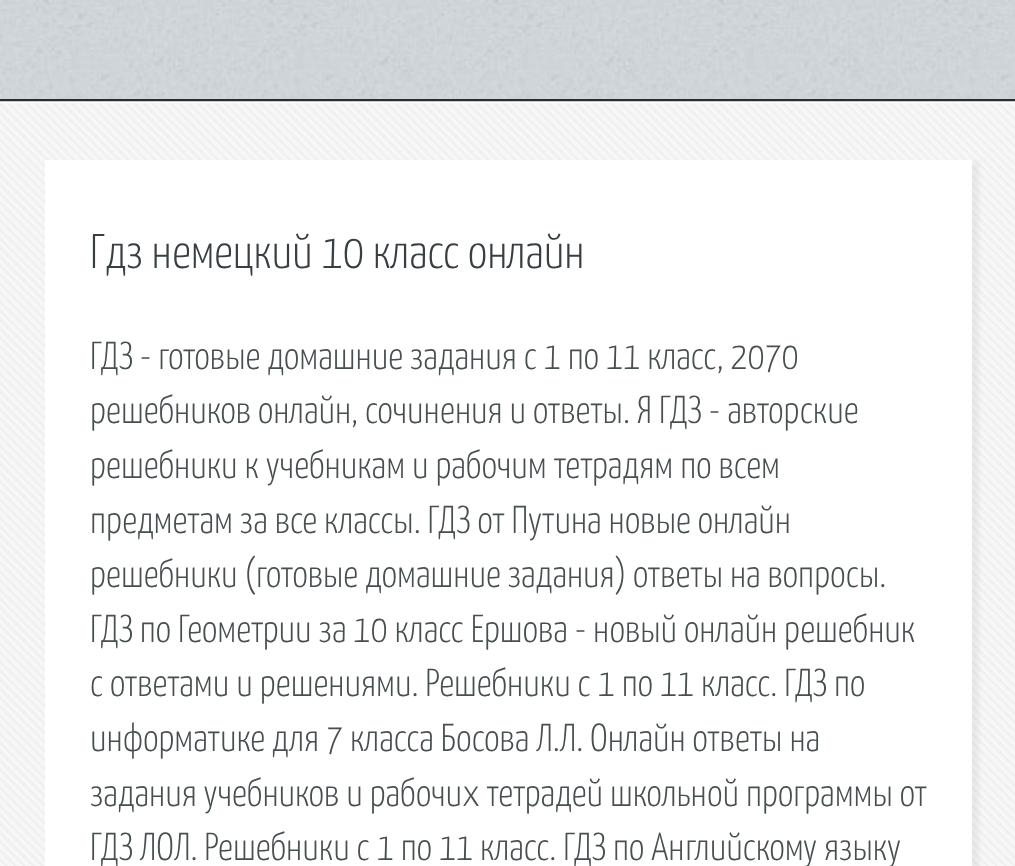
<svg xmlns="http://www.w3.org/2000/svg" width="1015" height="866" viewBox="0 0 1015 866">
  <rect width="100%" height="100%" fill="rgb(255,255,255)"/>
  <image x="0" y="0" width="1015" height="99" href="pic1.png"/>
  <image x="0" y="101" width="1015" height="1" href="pic2.png"/>
  <rect x="0" y="99" width="1015" height="2" fill="rgb(39,45,48)"/>
  <rect x="0" y="103" width="1015" height="763" fill="rgb(247,247,247)"/>
  <image x="0" y="103" width="1015" height="763" href="pic3.png"/>
  <rect x="47" y="162" width="932" height="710" fill="rgba(128,128,128,0.1)" filter="blur(2px)"/>
  <rect x="45" y="160" width="927" height="706" fill="rgb(255,255,255)"/>
  <text x="90" y="268" font-family="Yanone Kaffeesatz" font-size="48.75" font-weight="300" fill="rgb(55,63,66)">Гдз немецкий 10 класс онлайн</text>
  <g font-family="Yanone Kaffeesatz" font-size="39" font-weight="300" fill="rgb(71,79,81)">
    <text>
      <tspan x="90" y="369">ГДЗ - готовые домашние задания с 1 по 11 класс, 2070</tspan>
      <tspan x="90" y="423">решебников онлайн, сочинения и ответы. Я ГДЗ - авторские</tspan>
      <tspan x="90" y="478">решебники к учебникам и рабочим тетрадям по всем</tspan>
      <tspan x="90" y="533">предметам за все классы. ГДЗ от Путина новые онлайн</tspan>
      <tspan x="90" y="587">решебники (готовые домашние задания) ответы на вопросы.</tspan>
      <tspan x="90" y="642">ГДЗ по Геометрии за 10 класс Ершова - новый онлайн решебник</tspan>
      <tspan x="90" y="696">с ответами и решениями. Решебники с 1 по 11 класс. ГДЗ по</tspan>
      <tspan x="90" y="751">информатике для 7 класса Босова Л.Л. Онлайн ответы на</tspan>
      <tspan x="90" y="806">задания учебников и рабочих тетрадей школьной программы от</tspan>
      <tspan x="90" y="860">ГДЗ ЛОЛ. Решебники с 1 по 11 класс. ГДЗ по Английскому языку</tspan>
    </text>
  </g>
</svg>
